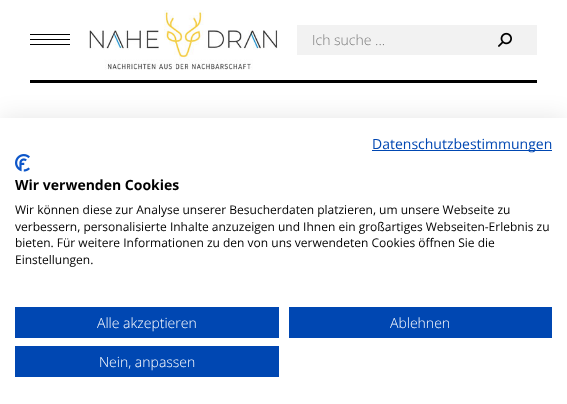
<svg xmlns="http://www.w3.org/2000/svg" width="567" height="404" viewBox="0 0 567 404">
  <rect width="100%" height="100%" fill="rgb(255,255,255)"/>
  <rect x="30" y="34" width="40" height="1" fill="rgb(0,0,0)"/>
  <rect x="30" y="39" width="40" height="1" fill="rgb(0,0,0)"/>
  <rect x="30" y="44" width="40" height="1" fill="rgb(0,0,0)"/>
  <image x="89" y="10" width="189" height="60" href="pic1.png"/>
  <rect x="297" y="25" width="240" height="30" fill="rgb(242,242,242)"/>
  <text x="312" y="45" font-family="Open Sans" font-size="14" font-weight="300" fill="rgb(121,121,121)">Ich suche ...</text>
  <image x="498" y="32" width="14" height="15" href="pic2.png"/>
  <rect x="30" y="80" width="507" height="3" fill="rgb(0,0,0)"/>
  <rect x="0" y="118" width="567" height="286" fill="rgba(0,0,0,0.1)" filter="blur(12px)"/>
  <rect x="0" y="118" width="567" height="286" fill="rgb(255,255,255)"/>
  <rect x="372" y="150" width="180" height="1" fill="rgb(0,71,178)"/>
  <text x="372" y="149" font-family="Open Sans" font-size="14" fill="rgb(0,71,178)">Datenschutzbestimmungen</text>
  <image x="15" y="154" width="15" height="18" href="pic3.png"/>
  <text x="15" y="190" font-family="Open Sans" font-size="14" font-weight="bold" fill="rgb(0,0,0)">Wir verwenden Cookies</text>
  <g font-family="Open Sans" font-size="12" fill="rgb(0,0,0)">
    <text>
      <tspan x="15" y="214">Wir können diese zur Analyse unserer Besucherdaten platzieren, um unsere Webseite zu</tspan>
      <tspan x="15" y="231">verbessern, personalisierte Inhalte anzuzeigen und Ihnen ein großartiges Webseiten-Erlebnis zu</tspan>
      <tspan x="15" y="247">bieten. Für weitere Informationen zu den von uns verwendeten Cookies öffnen Sie die</tspan>
      <tspan x="15" y="264">Einstellungen.</tspan>
    </text>
  </g>
  <rect x="15" y="307" width="264" height="31" fill="rgb(0,71,178)"/>
  <text x="97" y="328" font-family="Open Sans" font-size="14" font-weight="300" fill="rgb(255,255,255)">Alle akzeptieren</text>
  <rect x="289" y="307" width="263" height="31" fill="rgb(0,71,178)"/>
  <text x="390" y="328" font-family="Open Sans" font-size="14" font-weight="300" fill="rgb(255,255,255)">Ablehnen</text>
  <rect x="15" y="346" width="264" height="31" fill="rgb(0,71,178)"/>
  <text x="99" y="367" font-family="Open Sans" font-size="14" font-weight="300" fill="rgb(255,255,255)">Nein, anpassen</text>
</svg>
